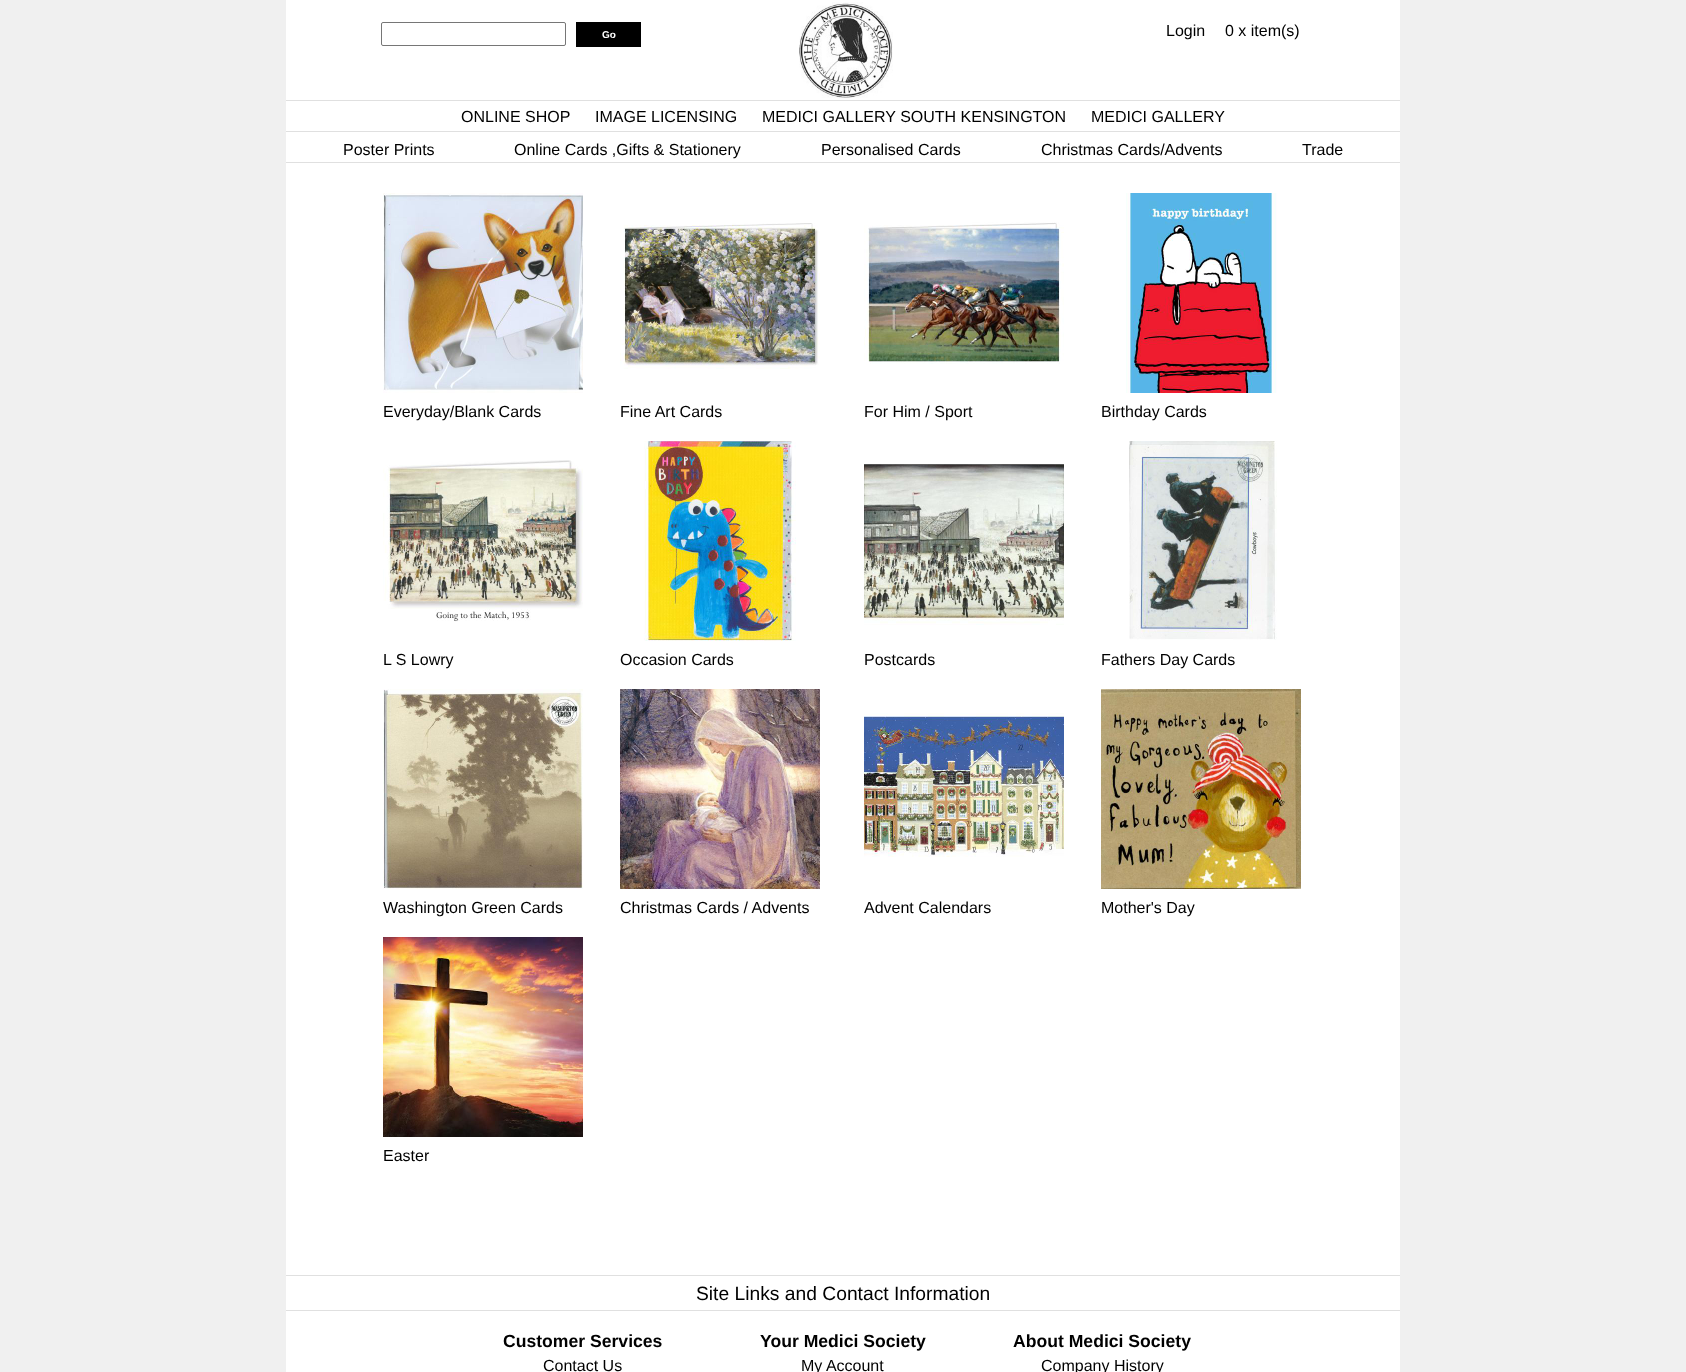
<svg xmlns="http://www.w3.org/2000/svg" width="1686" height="1372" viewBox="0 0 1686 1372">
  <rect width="100%" height="100%" fill="rgb(240,240,240)"/>
  <rect x="286" y="0" width="1114" height="1372" fill="rgb(255,255,255)"/>
  <rect x="381.5" y="22.5" width="184" height="23" rx="1.5" fill="none" stroke="rgb(118,118,118)"/>
  <rect x="576" y="22" width="65" height="25" fill="rgb(0,0,0)"/>
  <text x="602" y="38" font-family="Liberation Sans" font-size="10" font-weight="bold" fill="rgb(255,255,255)">Go</text>
  <image x="799" y="2" width="94" height="96" href="pic1.png"/>
  <g font-family="Liberation Sans" font-size="16" fill="rgb(0,0,0)">
    <text x="1166" y="36">Login</text>
    <text x="1225" y="36">0 x item(s)</text>
  </g>
  <rect x="286" y="100" width="1114" height="1" fill="rgb(224,224,224)"/>
  <rect x="286" y="131" width="1114" height="1" fill="rgb(224,224,224)"/>
  <g font-family="Liberation Sans" font-size="16" fill="rgb(0,0,0)">
    <text x="461" y="122">ONLINE SHOP</text>
    <text x="595" y="122">IMAGE LICENSING</text>
    <text x="762" y="122">MEDICI GALLERY SOUTH KENSINGTON</text>
    <text x="1091" y="122">MEDICI GALLERY</text>
  </g>
  <rect x="286" y="162" width="1114" height="1" fill="rgb(224,224,224)"/>
  <g font-family="Liberation Sans" font-size="16" fill="rgb(0,0,0)">
    <text x="343" y="155">Poster Prints</text>
    <text x="514" y="155">Online Cards ,Gifts &amp; Stationery</text>
    <text x="821" y="155">Personalised Cards</text>
    <text x="1041" y="155">Christmas Cards/Advents</text>
    <text x="1302" y="155">Trade</text>
  </g>
  <image x="383" y="193" width="200" height="200" href="pic2.png"/>
  <text x="383" y="417" font-family="Liberation Sans" font-size="16" fill="rgb(0,0,0)">Everyday/Blank Cards</text>
  <image x="620" y="223" width="200" height="146" href="pic3.png"/>
  <text x="620" y="417" font-family="Liberation Sans" font-size="16" fill="rgb(0,0,0)">Fine Art Cards</text>
  <image x="864" y="222" width="200" height="142" href="pic4.png"/>
  <text x="864" y="417" font-family="Liberation Sans" font-size="16" fill="rgb(0,0,0)">For Him / Sport</text>
  <image x="1126" y="193" width="151" height="200" href="pic5.png"/>
  <text x="1101" y="417" font-family="Liberation Sans" font-size="16" fill="rgb(0,0,0)">Birthday Cards</text>
  <image x="383" y="460" width="200" height="162" href="pic6.png"/>
  <text x="383" y="665" font-family="Liberation Sans" font-size="16" fill="rgb(0,0,0)">L S Lowry</text>
  <image x="644" y="441" width="152" height="200" href="pic7.png"/>
  <text x="620" y="665" font-family="Liberation Sans" font-size="16" fill="rgb(0,0,0)">Occasion Cards</text>
  <image x="864" y="464" width="200" height="161" href="pic8.png"/>
  <text x="864" y="665" font-family="Liberation Sans" font-size="16" fill="rgb(0,0,0)">Postcards</text>
  <image x="1129" y="441" width="148" height="199" href="pic9.png"/>
  <text x="1101" y="665" font-family="Liberation Sans" font-size="16" fill="rgb(0,0,0)">Fathers Day Cards</text>
  <image x="383" y="689" width="200" height="200" href="pic10.png"/>
  <text x="383" y="913" font-family="Liberation Sans" font-size="16" fill="rgb(0,0,0)">Washington Green Cards</text>
  <image x="620" y="689" width="200" height="200" href="pic11.png"/>
  <text x="620" y="913" font-family="Liberation Sans" font-size="16" fill="rgb(0,0,0)">Christmas Cards / Advents</text>
  <image x="864" y="713" width="200" height="144" href="pic12.png"/>
  <text x="864" y="913" font-family="Liberation Sans" font-size="16" fill="rgb(0,0,0)">Advent Calendars</text>
  <image x="1101" y="689" width="200" height="200" href="pic13.png"/>
  <text x="1101" y="913" font-family="Liberation Sans" font-size="16" fill="rgb(0,0,0)">Mother's Day</text>
  <image x="383" y="937" width="200" height="200" href="pic14.png"/>
  <text x="383" y="1161" font-family="Liberation Sans" font-size="16" fill="rgb(0,0,0)">Easter</text>
  <rect x="286" y="1275" width="1114" height="1" fill="rgb(224,224,224)"/>
  <rect x="286" y="1310" width="1114" height="1" fill="rgb(224,224,224)"/>
  <text x="696" y="1300" font-family="Liberation Sans" font-size="19.25" fill="rgb(0,0,0)">Site Links and Contact Information</text>
  <text x="503" y="1347" font-family="Liberation Sans" font-size="17.6" font-weight="bold" fill="rgb(0,0,0)">Customer Services</text>
  <text x="543" y="1371" font-family="Liberation Sans" font-size="16" fill="rgb(0,0,0)">Contact Us</text>
  <text x="760" y="1347" font-family="Liberation Sans" font-size="17.6" font-weight="bold" fill="rgb(0,0,0)">Your Medici Society</text>
  <text x="801" y="1371" font-family="Liberation Sans" font-size="16" fill="rgb(0,0,0)">My Account</text>
  <text x="1013" y="1347" font-family="Liberation Sans" font-size="17.6" font-weight="bold" fill="rgb(0,0,0)">About Medici Society</text>
  <text x="1041" y="1371" font-family="Liberation Sans" font-size="16" fill="rgb(0,0,0)">Company History</text>
</svg>
